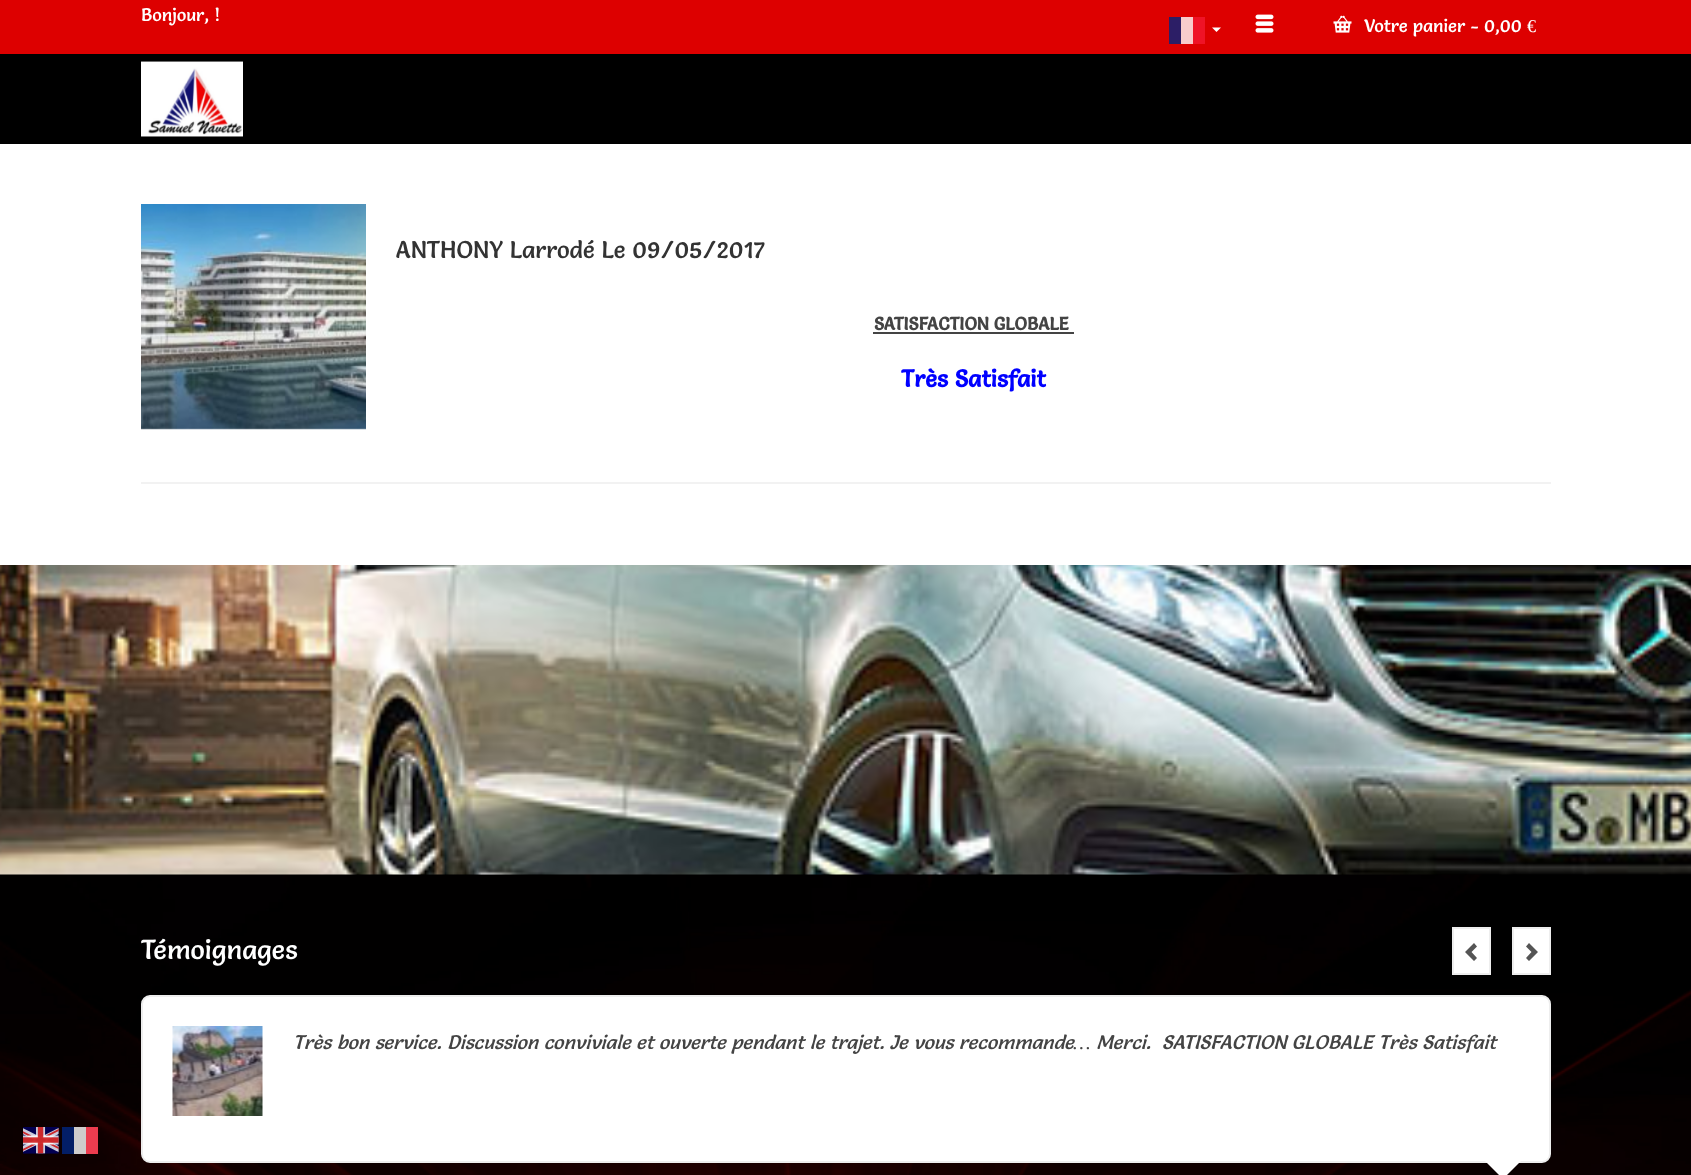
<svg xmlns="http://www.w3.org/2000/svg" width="1691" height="1175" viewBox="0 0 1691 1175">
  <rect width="100%" height="100%" fill="rgb(255,255,255)"/>
  <rect x="0" y="54" width="1691" height="90" fill="rgb(0,0,0)"/>
  <rect x="0" y="0" width="1691" height="54" fill="rgb(221,0,0)"/>
  <text x="141" y="21" font-family="Salsa" font-size="18" fill="rgb(255,255,255)">Bonjour, !</text>
  <rect x="1169" y="17" width="12" height="27" fill="rgb(44,30,102)"/>
  <rect x="1181" y="17" width="12" height="27" fill="rgb(248,204,204)"/>
  <rect x="1193" y="17" width="12" height="27" fill="rgb(239,19,38)"/>
  <path d="M1212 27.5L1216.5 32L1221 27.5Z" fill="rgb(255,255,255)"/>
  <image x="1255" y="14" width="19" height="19" href="pic1.png"/>
  <image x="1333" y="15" width="19" height="18" href="pic2.png"/>
  <text x="1364" y="32" font-family="Salsa" font-size="18" fill="rgb(255,255,255)">Votre panier - 0,00</text>
  <text x="1527" y="32" font-family="Liberation Serif" font-size="18" fill="rgb(255,255,255)">€</text>
  <image x="141" y="61" width="102" height="76" href="pic3.png"/>
  <image x="141" y="204" width="225" height="226" href="pic4.png"/>
  <text x="396" y="258" font-family="Salsa" font-size="24" fill="rgb(51,51,51)">ANTHONY Larrodé Le 09/05/2017</text>
  <text x="874" y="330" font-family="Salsa" font-size="18" font-weight="bold" fill="rgb(68,68,68)">SATISFACTION GLOBALE</text>
  <rect x="873" y="332" width="201" height="2" fill="rgb(68,68,68)"/>
  <text x="901" y="387" font-family="Salsa" font-size="24" font-weight="bold" fill="rgb(0,0,255)">Très Satisfait</text>
  <rect x="141" y="482" width="1410" height="2" fill="rgb(242,242,242)"/>
  <image x="0" y="565" width="1691" height="310" href="pic5.png"/>
  <image x="0" y="874" width="1691" height="301" href="pic6.png"/>
  <text x="141" y="959" font-family="Salsa" font-size="27" fill="rgb(255,255,255)">Témoignages</text>
  <rect x="1453" y="928" width="37" height="46" fill="rgb(255,255,255)" stroke="rgb(238,238,238)" stroke-width="2"/>
  <path d="M1474 961L1477 958L1471.5 952L1477 946.5L1474 943L1465 952Z" fill="rgb(85,85,85)"/>
  <rect x="1513" y="928" width="37" height="46" fill="rgb(255,255,255)" stroke="rgb(238,238,238)" stroke-width="2"/>
  <path d="M1529 943L1526 946.5L1531.5 952L1526 958L1529 961L1538 952Z" fill="rgb(85,85,85)"/>
  <rect x="142" y="996" width="1408" height="166" rx="8" fill="rgb(255,255,255)" stroke="rgb(238,238,238)" stroke-width="2"/>
  <image x="172" y="1026" width="91" height="90" href="pic7.png"/>
  <text x="293" y="1049" font-family="Salsa" font-size="19.5" font-style="italic" fill="rgb(68,68,68)">Très bon service. Discussion conviviale et ouverte pendant le trajet. Je vous recommande</text>
  <text x="1073" y="1049" font-family="Liberation Serif" font-size="19.5" font-style="italic" fill="rgb(68,68,68)">…</text>
  <text x="1096" y="1049" font-family="Salsa" font-size="19.5" font-style="italic" fill="rgb(68,68,68)" xml:space="preserve">Merci.  SATISFACTION GLOBALE Très Satisfait</text>
  <path d="M1485 1161H1521L1503 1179Z" fill="rgb(255,255,255)"/>
  <image x="23" y="1127" width="36" height="27" href="pic8.png"/>
  <rect x="62" y="1127" width="12" height="27" fill="rgb(3,30,102)"/>
  <rect x="74" y="1127" width="12" height="27" fill="rgba(255,255,255,0.8)"/>
  <rect x="86" y="1127" width="12" height="27" fill="rgb(236,60,79)"/>
</svg>
